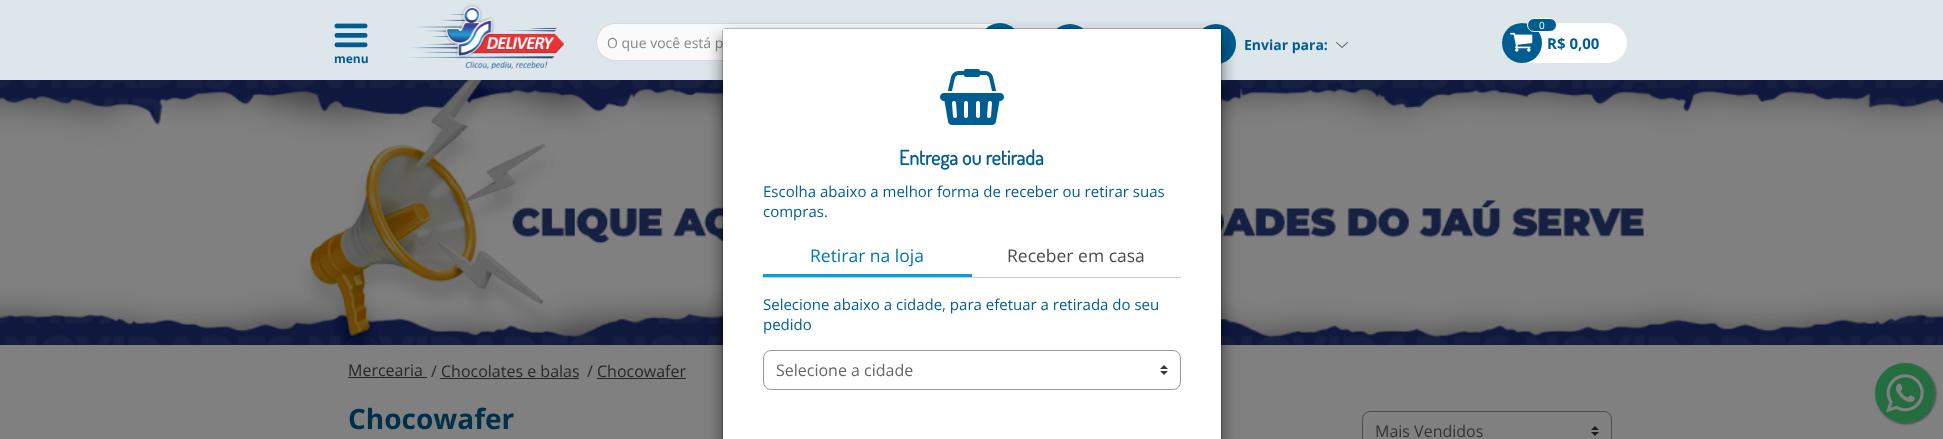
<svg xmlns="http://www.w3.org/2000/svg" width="1943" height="439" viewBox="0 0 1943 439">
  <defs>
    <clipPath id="clip1"><path d="M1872 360H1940V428H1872ZM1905 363C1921.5 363 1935 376.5 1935 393C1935 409.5 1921.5 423 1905 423C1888.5 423 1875 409.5 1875 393C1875 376.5 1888.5 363 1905 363Z" clip-rule="evenodd"/></clipPath>
  </defs>
  <rect width="100%" height="100%" fill="rgb(128,128,128)"/>
  <rect x="0" y="0" width="1943" height="80" fill="rgb(221,230,235)"/>
  <image x="407" y="4" width="157" height="65" href="pic1.png"/>
  <path d="M615 24H1010V60H615C605 60 597 52 597 42C597 32 605 24 615 24Z" fill="rgb(250,250,250)"/>
  <path d="M615 23H1010V61H615C605 61 596 52 596 42C596 32 605 23 615 23ZM615 24H1010V60H615C605 60 597 52 597 42C597 32 605 24 615 24Z" fill="rgb(216,216,216)" fill-rule="evenodd"/>
  <text x="607" y="48" font-family="Open Sans" font-size="14" fill="rgb(135,135,135)">O que você está p</text>
  <circle cx="1000" cy="43" r="20" fill="rgb(0,93,146)"/>
  <image x="334" y="23" width="34" height="25" href="pic2.png"/>
  <text x="334" y="63" font-family="Open Sans" font-size="12" font-weight="bold" fill="rgb(0,93,146)">menu</text>
  <circle cx="1070" cy="44" r="20" fill="rgb(0,93,146)"/>
  <circle cx="1216" cy="44" r="20" fill="rgb(0,93,146)"/>
  <text x="1244" y="50" font-family="Open Sans" font-size="14" font-weight="bold" fill="rgb(0,93,146)">Enviar para:</text>
  <image x="1336" y="42" width="12" height="6" href="pic3.png"/>
  <rect x="1502.5" y="23.5" width="124" height="39" rx="19.5" fill="rgb(255,255,255)" stroke="rgb(255,255,255)"/>
  <circle cx="1522" cy="43" r="20" fill="rgb(0,93,146)"/>
  <rect x="1527.5" y="18.5" width="29" height="13" rx="6.5" fill="rgb(0,93,146)" stroke="rgb(255,255,255)"/>
  <text x="1539" y="29" font-family="Open Sans" font-size="10" fill="rgb(255,255,255)">0</text>
  <image x="1510" y="32" width="23" height="20" href="pic4.png"/>
  <text x="1547" y="49" font-family="Open Sans" font-size="15" font-weight="bold" fill="rgb(0,93,146)">R$ 0,00</text>
  <image x="0" y="80" width="1943" height="265" href="pic5.png"/>
  <text x="348" y="376" font-family="Open Sans" font-size="16" fill="rgb(39,39,39)">Mercearia</text>
  <rect x="348" y="377" width="79" height="1" fill="rgb(39,39,39)"/>
  <g font-family="Open Sans" font-size="16" fill="rgb(39,39,39)">
    <text x="431" y="377">/ Chocolates e balas</text>
    <text x="587" y="377">/ Chocowafer</text>
  </g>
  <rect x="440" y="378" width="139" height="1" fill="rgb(39,39,39)"/>
  <rect x="597" y="378" width="89" height="1" fill="rgb(39,39,39)"/>
  <rect x="722" y="36" width="500" height="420" rx="3" fill="rgba(0,0,0,0.5)" filter="blur(8px)"/>
  <rect x="722.5" y="28.5" width="499" height="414" rx="2.5" fill="none" stroke="rgba(0,0,0,0.2)"/>
  <rect x="723" y="29" width="498" height="410" fill="rgb(255,255,255)"/>
  <image x="940" y="69" width="64" height="56" href="pic6.png"/>
  <text x="899" y="165" font-family="Dosis" font-size="20" font-weight="bold" fill="rgb(0,93,146)">Entrega ou retirada</text>
  <g font-family="Open Sans" font-size="15" fill="rgb(0,93,146)">
    <text>
      <tspan x="763" y="197">Escolha abaixo a melhor forma de receber ou retirar suas</tspan>
      <tspan x="763" y="217">compras.</tspan>
    </text>
  </g>
  <rect x="763" y="277" width="418" height="1" fill="rgb(204,204,204)"/>
  <rect x="763" y="274" width="209" height="3" fill="rgb(0,161,224)"/>
  <text x="810" y="262" font-family="Open Sans" font-size="17.5" fill="rgb(0,116,185)">Retirar na loja</text>
  <text x="1007" y="262" font-family="Open Sans" font-size="17.5" fill="rgb(74,75,77)">Receber em casa</text>
  <g font-family="Open Sans" font-size="15" fill="rgb(0,93,146)">
    <text>
      <tspan x="763" y="310">Selecione abaixo a cidade, para efetuar a retirada do seu</tspan>
      <tspan x="763" y="330">pedido</tspan>
    </text>
  </g>
  <image x="1160" y="365" width="8" height="10" href="pic7.png"/>
  <rect x="763.5" y="350.5" width="417" height="39" rx="7.5" fill="none" stroke="rgb(153,153,153)"/>
  <text x="776" y="376" font-family="Open Sans" font-size="16" fill="rgb(102,102,102)">Selecione a cidade</text>
  <text x="348" y="429" font-family="Open Sans" font-size="28" font-weight="bold" fill="rgb(0,47,73)">Chocowafer</text>
  <image x="1591" y="426" width="8" height="10" href="pic8.png"/>
  <rect x="1362.5" y="411.5" width="249" height="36" rx="7.5" fill="none" stroke="rgb(77,77,77)"/>
  <text x="1375" y="437" font-family="Open Sans" font-size="16" fill="rgb(51,51,51)">Mais Vendidos</text>
  <g clip-path="url(#clip1)">
    <rect x="1876" y="364" width="60" height="60" rx="30" fill="rgb(64,64,64)" filter="blur(1px)"/>
  </g>
  <circle cx="1905" cy="393" r="30" fill="rgba(19,106,51,0.85)"/>
  <image x="1886" y="374" width="38" height="39" href="pic9.png"/>
</svg>
